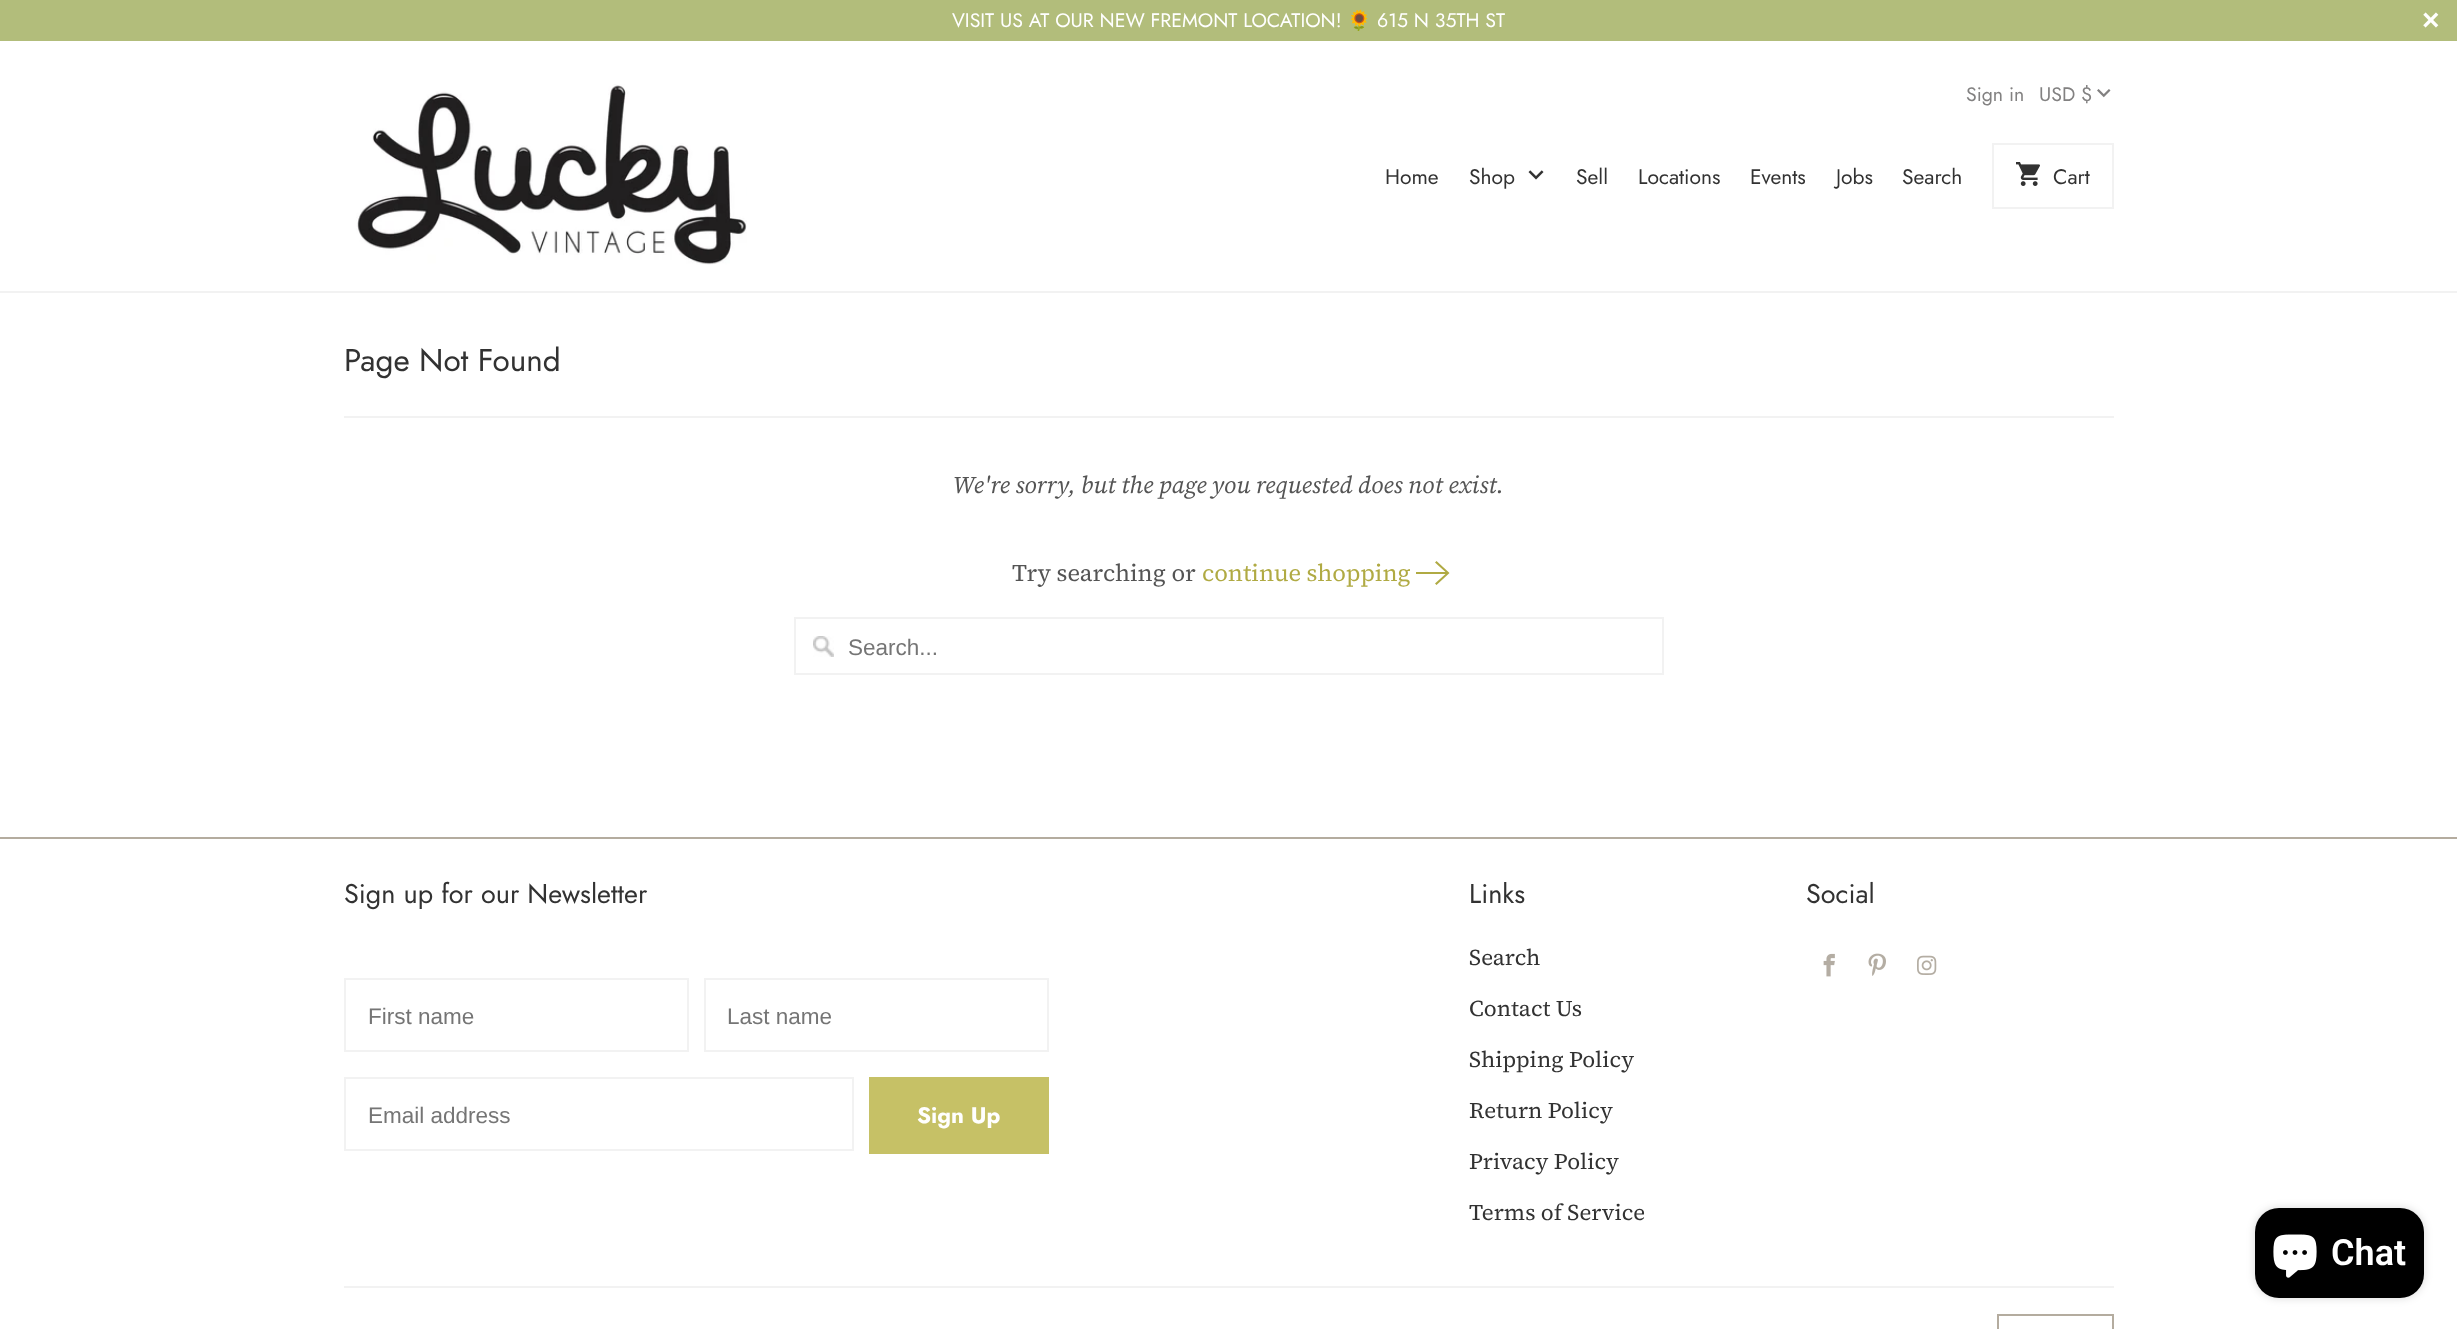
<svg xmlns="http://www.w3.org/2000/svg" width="2457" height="1329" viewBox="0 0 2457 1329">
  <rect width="100%" height="100%" fill="rgb(255,255,255)"/>
  <rect x="0" y="0" width="2457" height="41" fill="rgb(178,189,123)"/>
  <text x="952" y="27" font-family="Jost" font-size="19.5" fill="rgb(255,255,255)">VISIT US AT OUR NEW FREMONT LOCATION!</text>
  <text x="1347" y="27" font-family="Noto Color Emoji" font-size="19.5" fill="rgb(255,255,255)">🌻</text>
  <text x="1377" y="27" font-family="Jost" font-size="19.5" fill="rgb(255,255,255)">615 N 35TH ST</text>
  <text x="2422" y="30" font-family="Liberation Sans" font-size="30" font-weight="bold" fill="rgb(255,255,255)">×</text>
  <rect x="0" y="291" width="2457" height="2" fill="rgb(242,242,242)"/>
  <image x="356" y="84" width="391" height="181" href="pic1.png"/>
  <g font-family="Jost" font-size="19.5" fill="rgb(130,129,129)">
    <text x="1966" y="101">Sign in</text>
    <text x="2039" y="101">USD $</text>
  </g>
  <image x="2097" y="89" width="14" height="9" href="pic2.png"/>
  <g font-family="Jost" font-size="21" fill="rgb(50,50,50)">
    <text x="1385" y="184">Home</text>
    <text x="1469" y="184">Shop</text>
  </g>
  <image x="1528" y="170" width="16" height="10" href="pic3.png"/>
  <g font-family="Jost" font-size="21" fill="rgb(50,50,50)">
    <text x="1576" y="184">Sell</text>
    <text x="1638" y="184">Locations</text>
    <text x="1750" y="184">Events</text>
    <text x="1836" y="184">Jobs</text>
    <text x="1902" y="184">Search</text>
  </g>
  <rect x="1993" y="144" width="120" height="64" fill="none" stroke="rgb(242,242,242)" stroke-width="2"/>
  <image x="2016" y="162" width="24" height="24" href="pic4.png"/>
  <text x="2053" y="184" font-family="Jost" font-size="21" fill="rgb(50,50,50)">Cart</text>
  <rect x="344" y="416" width="1770" height="2" fill="rgb(242,242,242)"/>
  <text x="344" y="371" font-family="Jost" font-size="31.5" fill="rgb(50,50,50)">Page Not Found</text>
  <text x="953" y="493" font-family="'Source Serif 4'" font-size="24" font-style="italic" fill="rgb(84,84,84)">We're sorry, but the page you requested does not exist.</text>
  <text x="1012" y="581" font-family="'Source Serif 4'" font-size="24" fill="rgb(84,84,84)">Try searching or</text>
  <text x="1202" y="581" font-family="'Source Serif 4'" font-size="24" fill="rgb(176,170,67)">continue shopping</text>
  <path d="M1449.5 573L1436.5 585L1435 583.5L1445.5 574H1416V572H1445.5L1435 562.5L1436.5 561Z" fill="rgb(176,170,67)"/>
  <image x="813" y="636" width="21" height="21" href="pic5.png"/>
  <rect x="795" y="618" width="868" height="56" fill="none" stroke="rgb(242,242,242)" stroke-width="2"/>
  <text x="848" y="655" font-family="Liberation Sans" font-size="22.5" fill="rgb(117,117,117)">Search...</text>
  <rect x="0" y="837" width="2457" height="2" fill="rgb(180,172,159)"/>
  <text x="344" y="903" font-family="Jost" font-size="27" fill="rgb(50,50,50)">Sign up for our Newsletter</text>
  <rect x="345" y="979" width="343" height="72" fill="none" stroke="rgb(242,242,242)" stroke-width="2"/>
  <text x="368" y="1024" font-family="Liberation Sans" font-size="22.5" fill="rgb(117,117,117)">First name</text>
  <rect x="705" y="979" width="343" height="72" fill="none" stroke="rgb(242,242,242)" stroke-width="2"/>
  <text x="727" y="1024" font-family="Liberation Sans" font-size="22.5" fill="rgb(117,117,117)">Last name</text>
  <rect x="345" y="1078" width="508" height="72" fill="none" stroke="rgb(242,242,242)" stroke-width="2"/>
  <text x="368" y="1123" font-family="Liberation Sans" font-size="22.5" fill="rgb(117,117,117)">Email address</text>
  <rect x="869" y="1077" width="180" height="77" fill="rgb(198,193,102)"/>
  <text x="917" y="1123" font-family="Jost" font-size="22.5" font-weight="bold" fill="rgb(255,255,255)">Sign Up</text>
  <text x="1469" y="903" font-family="Jost" font-size="27" fill="rgb(50,50,50)">Links</text>
  <g font-family="'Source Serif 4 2'" font-size="22.5" fill="rgb(50,50,50)">
    <text x="1469" y="965">Search</text>
    <text x="1469" y="1016">Contact Us</text>
    <text x="1469" y="1067">Shipping Policy</text>
    <text x="1469" y="1118">Return Policy</text>
    <text x="1469" y="1169">Privacy Policy</text>
    <text x="1469" y="1220">Terms of Service</text>
  </g>
  <text x="1806" y="903" font-family="Jost" font-size="27" fill="rgb(50,50,50)">Social</text>
  <image x="1823" y="953" width="12" height="24" href="pic6.png"/>
  <image x="1868" y="953" width="18" height="23" href="pic7.png"/>
  <image x="1917" y="955" width="20" height="20" href="pic8.png"/>
  <rect x="344" y="1286" width="1770" height="2" fill="rgb(242,242,242)"/>
  <rect x="1998" y="1315" width="115" height="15" fill="none" stroke="rgb(180,172,159)" stroke-width="2"/>
  <rect x="2255" y="1208" width="169" height="90" rx="24" fill="rgba(0,0,0,0.15)" filter="blur(4px)"/>
  <rect x="2255" y="1208" width="169" height="90" rx="24" fill="rgb(0,0,0)"/>
  <image x="2273" y="1234" width="44" height="44" href="pic9.png"/>
  <text x="2331" y="1265" font-family="Roboto" font-size="36" font-weight="600" fill="rgb(255,255,255)">Chat</text>
</svg>
